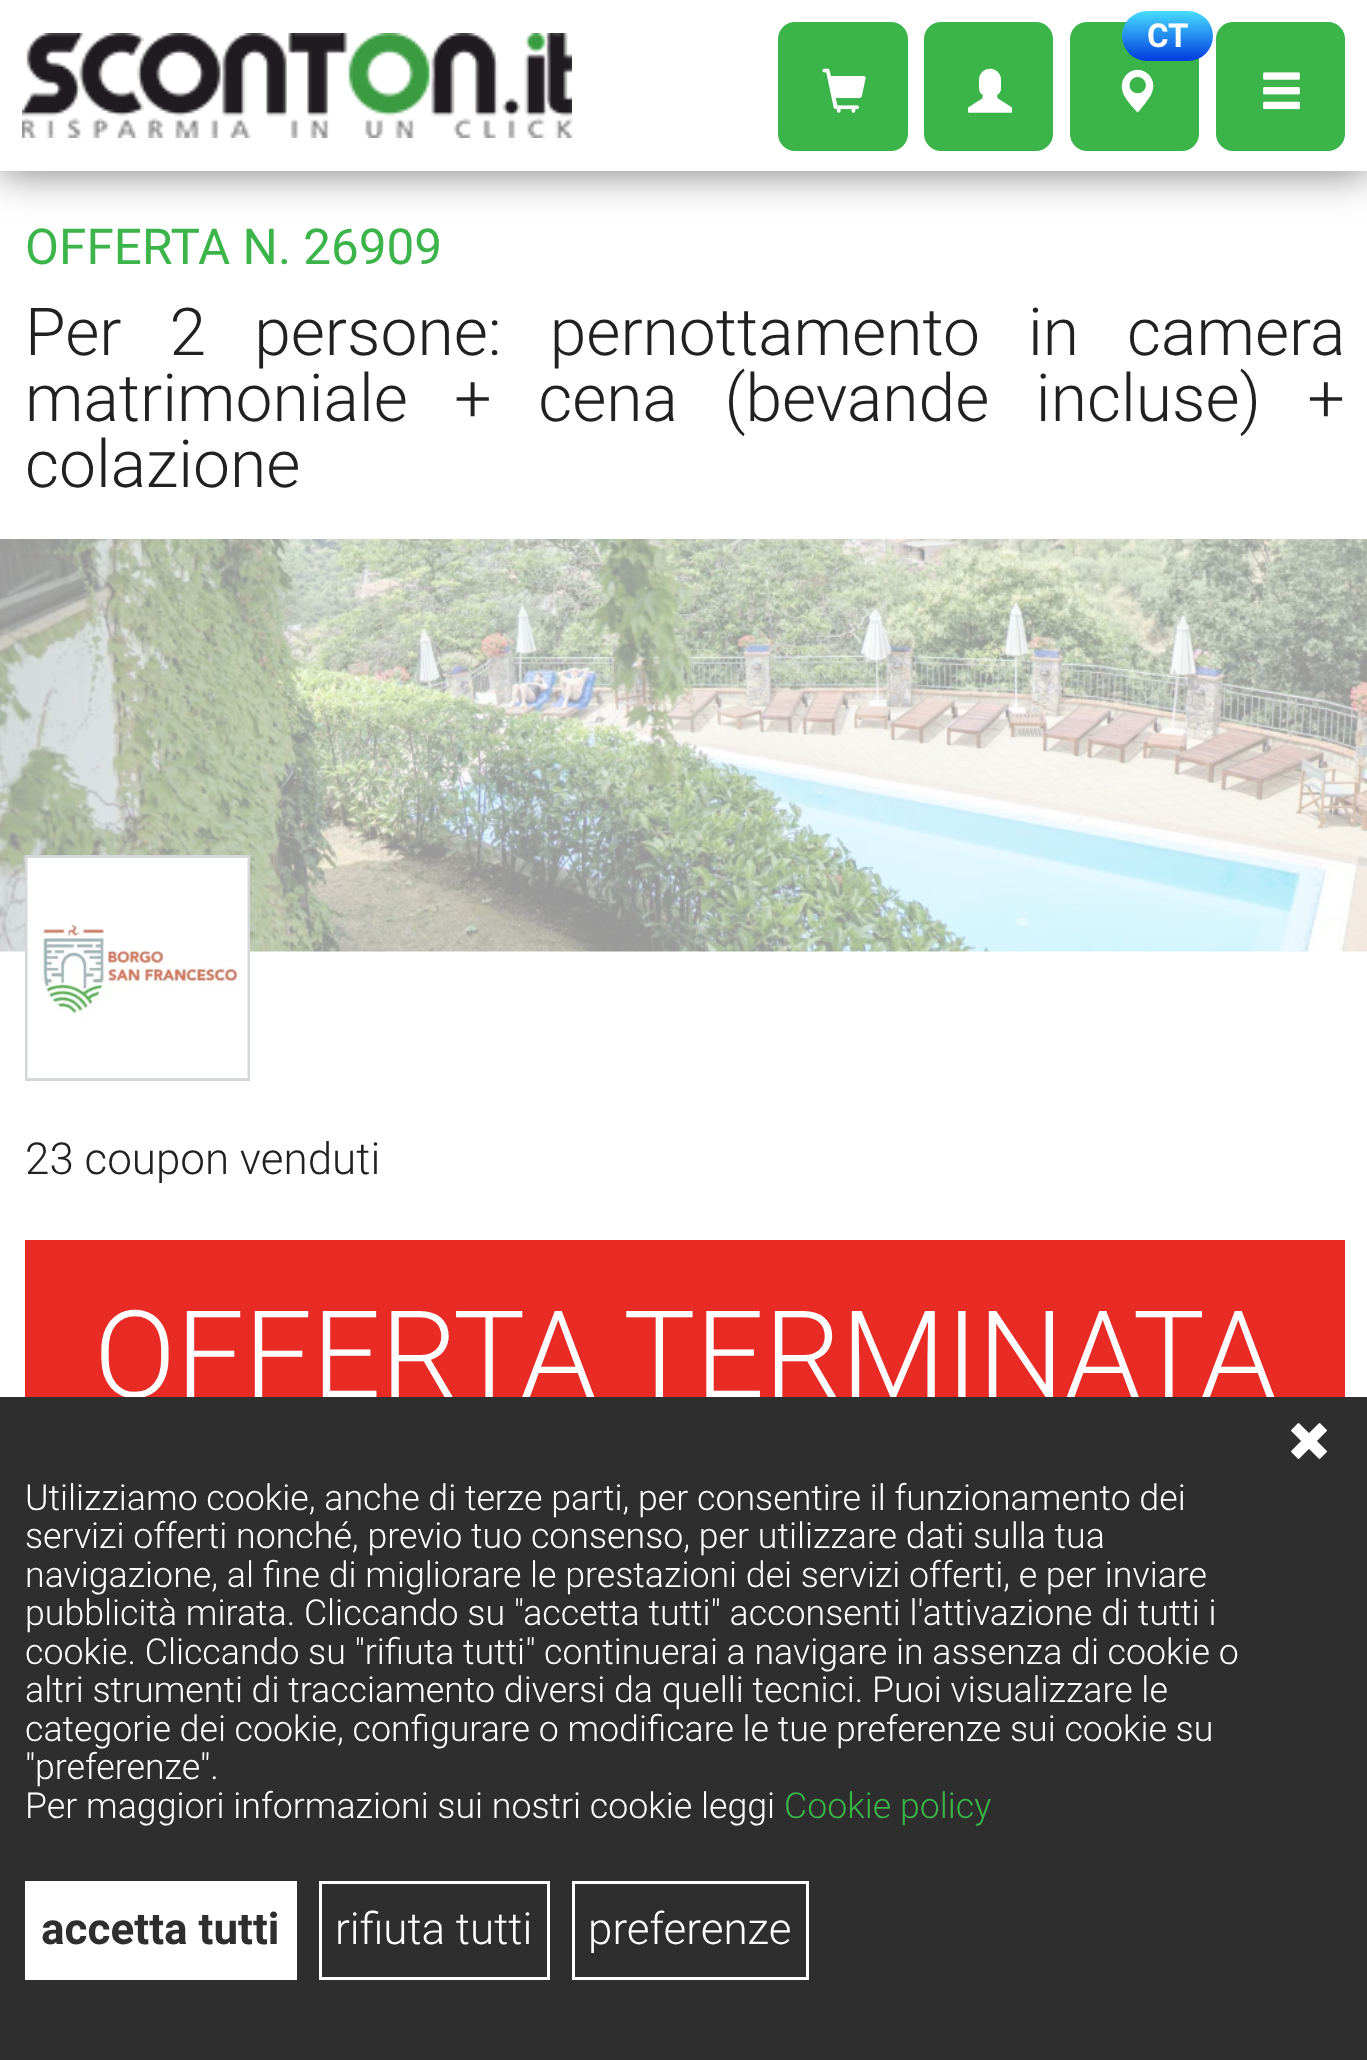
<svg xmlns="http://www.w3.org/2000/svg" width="1367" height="2060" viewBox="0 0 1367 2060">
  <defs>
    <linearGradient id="g1" gradientUnits="userSpaceOnUse" x1="1167" y1="11" x2="1167" y2="61"><stop offset="0" stop-color="rgb(71,221,255)"/><stop offset="1" stop-color="rgb(0,59,223)"/></linearGradient>
  </defs>
  <rect width="100%" height="100%" fill="rgb(255,255,255)"/>
  <rect x="0" y="-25" width="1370" height="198" fill="rgba(0,0,0,0.5)" filter="blur(20.5px)"/>
  <rect x="0" y="0" width="1367" height="171" fill="rgb(255,255,255)"/>
  <image x="22" y="33" width="550" height="105" href="pic1.png"/>
  <rect x="778" y="22" width="130" height="129" rx="17" fill="rgb(59,181,74)"/>
  <image x="822" y="68" width="44" height="45" href="pic2.png"/>
  <rect x="924" y="22" width="129" height="129" rx="17" fill="rgb(59,181,74)"/>
  <image x="968" y="68" width="44" height="45" href="pic3.png"/>
  <rect x="1070" y="22" width="129" height="129" rx="17" fill="rgb(59,181,74)"/>
  <rect x="1122" y="11" width="91" height="50" rx="25" fill="url(#g1)"/>
  <text x="1147" y="47" font-family="Roboto" font-size="33" font-weight="bold" fill="rgb(255,255,255)">CT</text>
  <image x="1121" y="69" width="33" height="44" href="pic4.png"/>
  <rect x="1216" y="22" width="129" height="129" rx="17" fill="rgb(59,181,74)"/>
  <image x="1263" y="72" width="37" height="38" href="pic5.png"/>
  <text x="25" y="264" font-family="Roboto" font-size="49.5" fill="rgb(59,181,74)">OFFERTA N. 26909</text>
  <g font-family="Roboto" font-size="66" font-weight="300" fill="rgb(33,33,33)">
    <text>
      <tspan x="25" y="355" word-spacing="32">Per 2 persone: pernottamento in camera</tspan>
      <tspan x="25" y="421" word-spacing="30.5">matrimoniale + cena (bevande incluse) +</tspan>
      <tspan x="25" y="487">colazione</tspan>
    </text>
  </g>
  <image x="0" y="539" width="1367" height="413" href="pic6.png"/>
  <rect x="26.5" y="856.5" width="222" height="223" fill="none" stroke="rgb(213,216,219)" stroke-width="3"/>
  <image x="27" y="858" width="221" height="220" href="pic7.png"/>
  <text x="25" y="1174" font-family="Roboto" font-size="44" font-weight="300" fill="rgb(33,33,33)">23 coupon venduti</text>
  <rect x="25" y="1240" width="1320" height="157" fill="rgb(232,43,37)"/>
  <text x="94" y="1397" font-family="Roboto" font-size="121" font-weight="300" fill="rgb(255,255,255)">OFFERTA TERMINATA</text>
  <rect x="0" y="1397" width="1367" height="663" fill="rgb(46,46,46)"/>
  <g font-family="Roboto" font-size="35.75" font-weight="300" fill="rgb(255,255,255)">
    <text>
      <tspan x="25" y="1510">Utilizziamo cookie, anche di terze parti, per consentire il funzionamento dei</tspan>
      <tspan x="25" y="1548">servizi offerti nonché, previo tuo consenso, per utilizzare dati sulla tua</tspan>
      <tspan x="25" y="1587">navigazione, al fine di migliorare le prestazioni dei servizi offerti, e per inviare</tspan>
      <tspan x="25" y="1625">pubblicità mirata. Cliccando su "accetta tutti" acconsenti l'attivazione di tutti i</tspan>
      <tspan x="25" y="1664">cookie. Cliccando su "rifiuta tutti" continuerai a navigare in assenza di cookie o</tspan>
      <tspan x="25" y="1702">altri strumenti di tracciamento diversi da quelli tecnici. Puoi visualizzare le</tspan>
      <tspan x="25" y="1741">categorie dei cookie, configurare o modificare le tue preferenze sui cookie su</tspan>
      <tspan x="25" y="1779">"preferenze".</tspan>
      <tspan x="25" y="1818">Per maggiori informazioni sui nostri cookie leggi</tspan>
    </text>
  </g>
  <text x="784" y="1818" font-family="Roboto" font-size="35.75" font-weight="300" fill="rgb(59,181,74)">Cookie policy</text>
  <image x="1291" y="1423" width="36" height="36" href="pic8.png"/>
  <rect x="25" y="1881" width="272" height="99" fill="rgb(255,255,255)"/>
  <text x="41" y="1944" font-family="Roboto" font-size="44" font-weight="bold" fill="rgb(46,46,46)">accetta tutti</text>
  <rect x="320.5" y="1882.5" width="228" height="96" fill="none" stroke="rgb(255,255,255)" stroke-width="3"/>
  <text x="335" y="1944" font-family="Roboto" font-size="44" font-weight="300" fill="rgb(255,255,255)">rifiuta tutti</text>
  <rect x="573.5" y="1882.5" width="234" height="96" fill="none" stroke="rgb(255,255,255)" stroke-width="3"/>
  <text x="588" y="1944" font-family="Roboto" font-size="44" font-weight="300" fill="rgb(255,255,255)">preferenze</text>
</svg>
